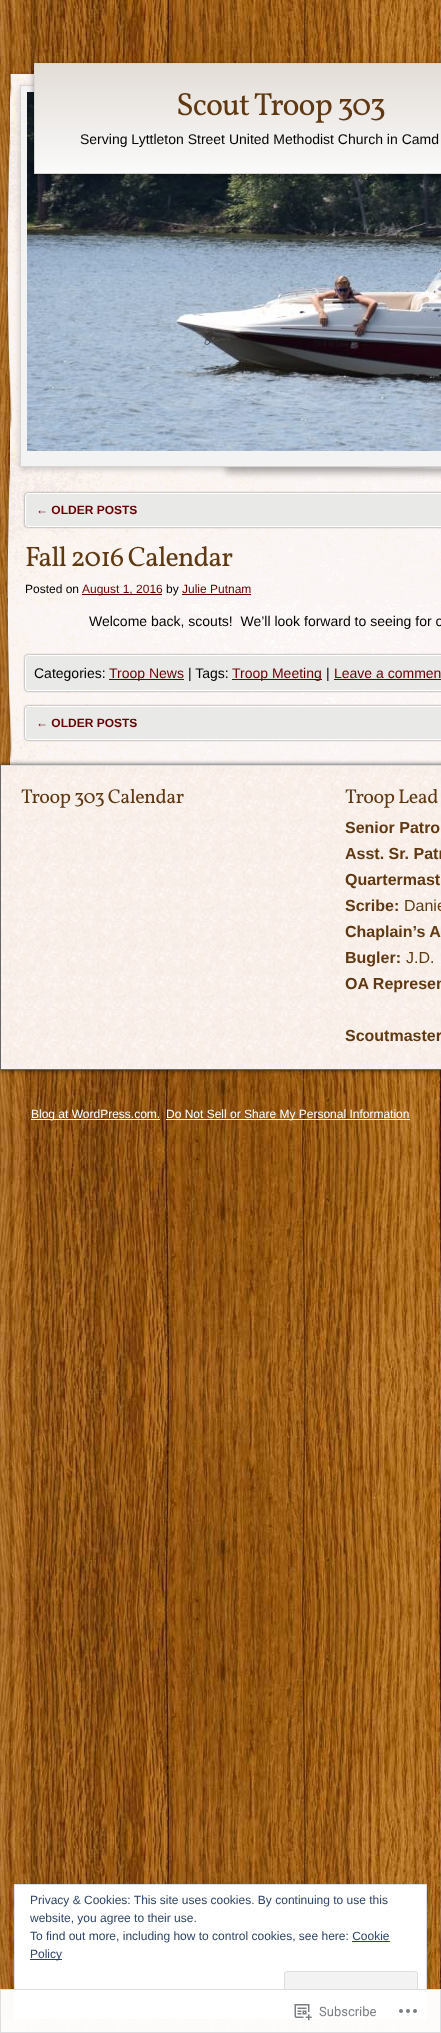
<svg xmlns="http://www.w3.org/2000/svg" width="441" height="2033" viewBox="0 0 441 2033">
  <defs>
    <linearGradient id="g1" gradientUnits="userSpaceOnUse" x1="281" y1="64" x2="281" y2="173"><stop offset="0" stop-color="rgb(227,221,215)"/><stop offset="1" stop-color="rgb(250,250,250)"/></linearGradient>
  </defs>
  <rect width="100%" height="100%" fill="rgb(255,255,255)"/>
  <image x="0" y="0" width="441" height="2033" href="pic1.png"/>
  <image x="8" y="71" width="26" height="38" href="pic2.png"/>
  <image x="5" y="109" width="436" height="656" href="pic4.png"/>
  <rect x="226" y="358" width="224" height="116" fill="rgba(0,0,0,0.2)" filter="blur(3px)"/>
  <path d="M227 348L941 364L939 480L225 464Z" fill="rgb(243,243,243)"/>
  <path d="M228 348L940.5 364.5L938 479.5L225.5 463Z" fill="none" stroke="rgb(217,213,211)"/>
  <rect x="20" y="87" width="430" height="382" fill="rgba(0,0,0,0.2)" filter="blur(3px)"/>
  <rect x="20.5" y="85.5" width="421" height="381" fill="rgb(243,243,243)" stroke="rgb(217,213,211)"/>
  <image x="27" y="92" width="414" height="359" href="pic3.png"/>
  <rect x="34" y="65" width="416" height="111" fill="rgba(0,0,0,0.4)" filter="blur(3px)"/>
  <rect x="35" y="64" width="406" height="109" fill="url(#g1)"/>
  <rect x="34.5" y="63.5" width="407" height="110" fill="none" stroke="rgb(217,213,211)"/>
  <text x="176" y="115" font-family="Vollkorn" font-size="32" letter-spacing="-1" fill="rgb(96,57,19)">Scout Troop 303</text>
  <text x="80" y="144" font-family="Liberation Sans" font-size="14" fill="rgb(0,0,0)">Serving Lyttleton Street United Methodist Church in Camd</text>
  <rect x="25" y="493" width="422" height="34" rx="3" fill="rgba(0,0,0,0.5)" filter="blur(1px)"/>
  <rect x="25.5" y="493.5" width="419" height="33" rx="2.5" fill="rgb(233,233,232)" stroke="rgb(255,255,255)"/>
  <text x="36" y="514" font-family="Liberation Sans" font-size="12" font-weight="bold" fill="rgb(102,0,0)">← OLDER POSTS</text>
  <text x="25" y="566" font-family="Vollkorn" font-size="28" letter-spacing="-1" fill="rgb(96,57,19)">Fall 2016 Calendar</text>
  <text x="25" y="593" font-family="Liberation Sans" font-size="12" fill="rgb(0,0,0)">Posted on</text>
  <rect x="82" y="594" width="80" height="1" fill="rgb(102,0,0)"/>
  <text x="82" y="593" font-family="Liberation Sans" font-size="12" fill="rgb(102,0,0)">August 1, 2016</text>
  <text x="166" y="593" font-family="Liberation Sans" font-size="12" fill="rgb(0,0,0)">by</text>
  <text x="182" y="593" font-family="Liberation Sans" font-size="12" fill="rgb(102,0,0)">Julie Putnam</text>
  <rect x="182" y="594" width="69" height="1" fill="rgb(102,0,0)"/>
  <text x="89" y="626" font-family="Liberation Sans" font-size="14" fill="rgb(0,0,0)" xml:space="preserve">Welcome back, scouts!  We’ll look forward to seeing for o</text>
  <rect x="25" y="655" width="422" height="36" rx="3" fill="rgba(0,0,0,0.5)" filter="blur(1px)"/>
  <rect x="25.5" y="655.5" width="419" height="35" rx="2.5" fill="rgb(233,233,232)" stroke="rgb(255,255,255)"/>
  <text x="34" y="678" font-family="Liberation Sans" font-size="14" fill="rgb(0,0,0)">Categories:</text>
  <rect x="109" y="679" width="75" height="1" fill="rgb(102,0,0)"/>
  <text x="109" y="678" font-family="Liberation Sans" font-size="14" fill="rgb(102,0,0)">Troop News</text>
  <text x="188" y="678" font-family="Liberation Sans" font-size="14" fill="rgb(0,0,0)">| Tags:</text>
  <rect x="232" y="679" width="90" height="1" fill="rgb(102,0,0)"/>
  <text x="232" y="678" font-family="Liberation Sans" font-size="14" fill="rgb(102,0,0)">Troop Meeting</text>
  <text x="326" y="678" font-family="Liberation Sans" font-size="14" fill="rgb(0,0,0)">|</text>
  <text x="334" y="678" font-family="Liberation Sans" font-size="14" fill="rgb(102,0,0)">Leave a commen</text>
  <rect x="334" y="679" width="107" height="1" fill="rgb(102,0,0)"/>
  <rect x="25" y="706" width="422" height="34" rx="3" fill="rgba(0,0,0,0.5)" filter="blur(1px)"/>
  <rect x="25.5" y="706.5" width="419" height="33" rx="2.5" fill="rgb(233,233,232)" stroke="rgb(255,255,255)"/>
  <text x="36" y="727" font-family="Liberation Sans" font-size="12" font-weight="bold" fill="rgb(102,0,0)">← OLDER POSTS</text>
  <rect x="0" y="765" width="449" height="305" fill="rgba(0,0,0,0.8)" filter="blur(2.5px)"/>
  <image x="1" y="766" width="440" height="303" href="pic5.png"/>
  <rect x="0" y="765" width="441" height="1" fill="rgb(221,221,221)"/>
  <rect x="0" y="1069" width="441" height="1" fill="rgb(102,102,102)"/>
  <rect x="0" y="765" width="1" height="305" fill="rgb(102,102,102)"/>
  <g font-family="Vollkorn" font-size="20" letter-spacing="-0.5" fill="rgb(96,57,19)">
    <text x="21" y="803">Troop 303 Calendar</text>
    <text x="345" y="803">Troop Lead</text>
  </g>
  <g font-family="Liberation Sans" font-size="16" font-weight="bold" fill="rgb(96,57,19)">
    <text>
      <tspan x="345" y="833">Senior Patro</tspan>
      <tspan x="345" y="859">Asst. Sr. Patr</tspan>
      <tspan x="345" y="885">Quartermast</tspan>
      <tspan x="345" y="911">Scribe:</tspan>
    </text>
  </g>
  <text x="404" y="911" font-family="Liberation Sans" font-size="16" fill="rgb(96,57,19)">Danie</text>
  <g font-family="Liberation Sans" font-size="16" font-weight="bold" fill="rgb(96,57,19)">
    <text>
      <tspan x="345" y="937">Chaplain’s A</tspan>
      <tspan x="345" y="963">Bugler:</tspan>
    </text>
  </g>
  <text x="406" y="963" font-family="Liberation Sans" font-size="16" fill="rgb(96,57,19)">J.D.</text>
  <g font-family="Liberation Sans" font-size="16" font-weight="bold" fill="rgb(96,57,19)">
    <text x="345" y="989">OA Represen</text>
    <text x="345" y="1041">Scoutmaster</text>
  </g>
  <rect x="31" y="1119" width="129" height="1" fill="rgb(255,255,255)"/>
  <text x="31" y="1118" font-family="Liberation Sans" font-size="12" fill="rgb(255,255,255)">Blog at WordPress.com.</text>
  <rect x="166" y="1119" width="244" height="1" fill="rgb(255,255,255)"/>
  <text x="166" y="1118" font-family="Liberation Sans" font-size="12" fill="rgb(255,255,255)">Do Not Sell or Share My Personal Information</text>
  <rect x="14.5" y="1884.5" width="412" height="134" fill="rgb(255,255,255)" stroke="rgb(222,222,222)"/>
  <g font-family="Liberation Sans" font-size="12" fill="rgb(46,68,103)">
    <text>
      <tspan x="30" y="1904">Privacy &amp; Cookies: This site uses cookies. By continuing to use this</tspan>
      <tspan x="30" y="1922">website, you agree to their use.</tspan>
      <tspan x="30" y="1940">To find out more, including how to control cookies, see here: Cookie</tspan>
    </text>
  </g>
  <rect x="30" y="1959" width="32" height="1" fill="rgb(46,68,103)"/>
  <text x="30" y="1958" font-family="Liberation Sans" font-size="12" fill="rgb(46,68,103)">Policy</text>
  <rect x="352" y="1941" width="38" height="1" fill="rgb(46,68,103)"/>
  <rect x="284.5" y="1971.5" width="133" height="38" rx="2.5" fill="rgb(243,243,243)" stroke="rgb(222,222,222)"/>
  <rect x="0" y="1989" width="441" height="44" fill="rgba(255,255,255,0.98)"/>
  <rect x="0.5" y="1989.5" width="440" height="43" fill="none" stroke="rgba(220,220,222,0.98)"/>
  <image x="294" y="2004" width="18" height="17" href="pic6.png"/>
  <text x="319" y="2016" font-family="Roboto" font-size="13" fill="rgb(123,127,132)">Subscribe</text>
  <image x="399" y="2009" width="18" height="4" href="pic7.png"/>
</svg>
